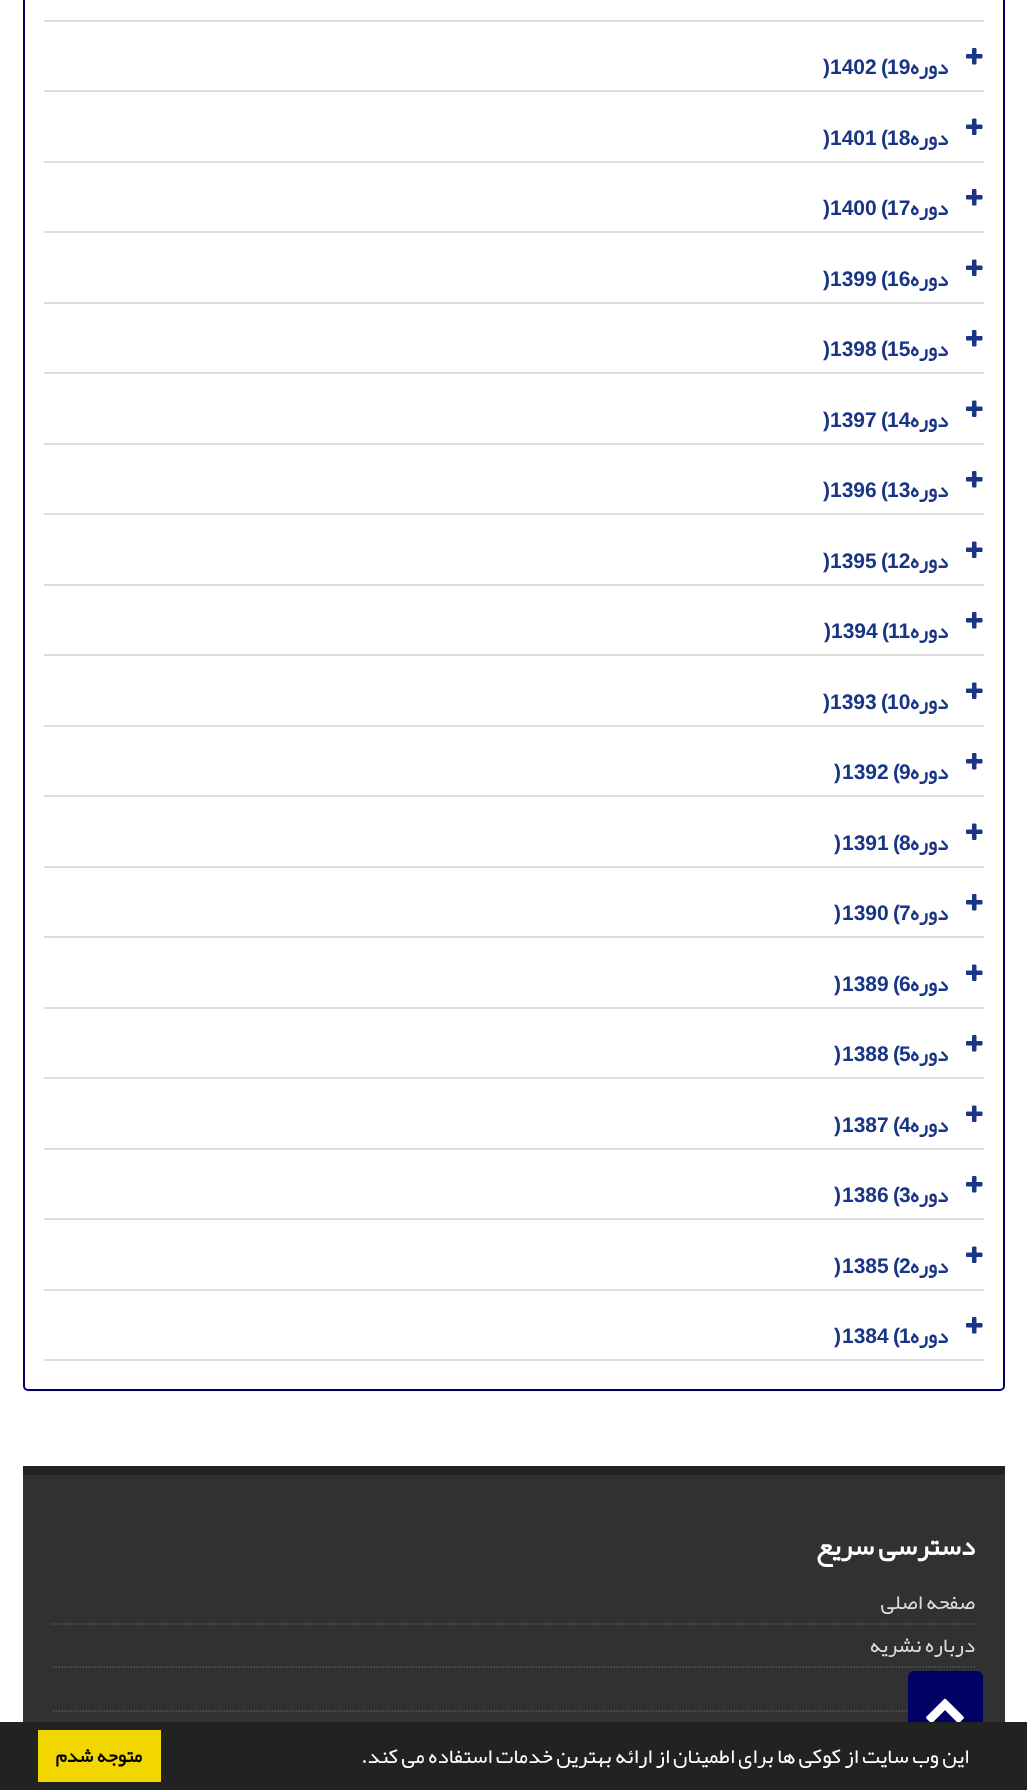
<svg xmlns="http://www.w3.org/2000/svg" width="1027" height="1790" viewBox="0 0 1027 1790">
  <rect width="100%" height="100%" fill="rgb(255,255,255)"/>
  <rect x="23" y="-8" width="982" height="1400" rx="5" fill="rgba(0,0,0,0.05)" filter="blur(1px)"/>
  <rect x="24" y="-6" width="980" height="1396" rx="4" fill="rgb(255,255,255)" stroke="rgb(0,0,102)" stroke-width="2"/>
  <rect x="44" y="20" width="940" height="2" fill="rgb(221,221,221)"/>
  <rect x="44" y="90" width="940" height="2" fill="rgb(221,221,221)"/>
  <image x="966" y="48" width="17" height="17" href="pic1.png"/>
  <text x="948" y="74" font-family="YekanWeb" font-size="21" font-weight="bold" direction="rtl" fill="rgb(24,53,134)">دوره</text>
  <g font-family="Liberation Sans" font-size="21" font-weight="bold" fill="rgb(24,53,134)">
    <text x="881" y="74">(</text>
    <text x="887" y="74">19</text>
    <text x="830" y="74">1402</text>
    <text x="823" y="74">)</text>
  </g>
  <rect x="44" y="161" width="940" height="2" fill="rgb(221,221,221)"/>
  <image x="966" y="118" width="17" height="17" href="pic2.png"/>
  <text x="948" y="145" font-family="YekanWeb" font-size="21" font-weight="bold" direction="rtl" fill="rgb(24,53,134)">دوره</text>
  <g font-family="Liberation Sans" font-size="21" font-weight="bold" fill="rgb(24,53,134)">
    <text x="881" y="145">(</text>
    <text x="887" y="145">18</text>
    <text x="830" y="145">1401</text>
    <text x="823" y="145">)</text>
  </g>
  <rect x="44" y="231" width="940" height="2" fill="rgb(221,221,221)"/>
  <image x="966" y="189" width="17" height="17" href="pic1.png"/>
  <text x="948" y="215" font-family="YekanWeb" font-size="21" font-weight="bold" direction="rtl" fill="rgb(24,53,134)">دوره</text>
  <g font-family="Liberation Sans" font-size="21" font-weight="bold" fill="rgb(24,53,134)">
    <text x="881" y="215">(</text>
    <text x="887" y="215">17</text>
    <text x="830" y="215">1400</text>
    <text x="823" y="215">)</text>
  </g>
  <rect x="44" y="302" width="940" height="2" fill="rgb(221,221,221)"/>
  <image x="966" y="259" width="17" height="17" href="pic2.png"/>
  <text x="948" y="286" font-family="YekanWeb" font-size="21" font-weight="bold" direction="rtl" fill="rgb(24,53,134)">دوره</text>
  <g font-family="Liberation Sans" font-size="21" font-weight="bold" fill="rgb(24,53,134)">
    <text x="881" y="286">(</text>
    <text x="887" y="286">16</text>
    <text x="830" y="286">1399</text>
    <text x="823" y="286">)</text>
  </g>
  <rect x="44" y="372" width="940" height="2" fill="rgb(221,221,221)"/>
  <image x="966" y="330" width="17" height="17" href="pic1.png"/>
  <text x="948" y="356" font-family="YekanWeb" font-size="21" font-weight="bold" direction="rtl" fill="rgb(24,53,134)">دوره</text>
  <g font-family="Liberation Sans" font-size="21" font-weight="bold" fill="rgb(24,53,134)">
    <text x="881" y="356">(</text>
    <text x="887" y="356">15</text>
    <text x="830" y="356">1398</text>
    <text x="823" y="356">)</text>
  </g>
  <rect x="44" y="443" width="940" height="2" fill="rgb(221,221,221)"/>
  <image x="966" y="400" width="17" height="17" href="pic2.png"/>
  <text x="948" y="427" font-family="YekanWeb" font-size="21" font-weight="bold" direction="rtl" fill="rgb(24,53,134)">دوره</text>
  <g font-family="Liberation Sans" font-size="21" font-weight="bold" fill="rgb(24,53,134)">
    <text x="881" y="427">(</text>
    <text x="887" y="427">14</text>
    <text x="830" y="427">1397</text>
    <text x="823" y="427">)</text>
  </g>
  <rect x="44" y="513" width="940" height="2" fill="rgb(221,221,221)"/>
  <image x="966" y="471" width="17" height="17" href="pic1.png"/>
  <text x="948" y="497" font-family="YekanWeb" font-size="21" font-weight="bold" direction="rtl" fill="rgb(24,53,134)">دوره</text>
  <g font-family="Liberation Sans" font-size="21" font-weight="bold" fill="rgb(24,53,134)">
    <text x="881" y="497">(</text>
    <text x="887" y="497">13</text>
    <text x="830" y="497">1396</text>
    <text x="823" y="497">)</text>
  </g>
  <rect x="44" y="584" width="940" height="2" fill="rgb(221,221,221)"/>
  <image x="966" y="541" width="17" height="17" href="pic2.png"/>
  <text x="948" y="568" font-family="YekanWeb" font-size="21" font-weight="bold" direction="rtl" fill="rgb(24,53,134)">دوره</text>
  <g font-family="Liberation Sans" font-size="21" font-weight="bold" fill="rgb(24,53,134)">
    <text x="881" y="568">(</text>
    <text x="887" y="568">12</text>
    <text x="830" y="568">1395</text>
    <text x="823" y="568">)</text>
  </g>
  <rect x="44" y="654" width="940" height="2" fill="rgb(221,221,221)"/>
  <image x="966" y="612" width="17" height="17" href="pic1.png"/>
  <text x="948" y="638" font-family="YekanWeb" font-size="21" font-weight="bold" direction="rtl" fill="rgb(24,53,134)">دوره</text>
  <g font-family="Liberation Sans" font-size="21" font-weight="bold" fill="rgb(24,53,134)">
    <text x="882" y="638">(</text>
    <text x="888" y="638">11</text>
    <text x="831" y="638">1394</text>
    <text x="824" y="638">)</text>
  </g>
  <rect x="44" y="725" width="940" height="2" fill="rgb(221,221,221)"/>
  <image x="966" y="682" width="17" height="17" href="pic2.png"/>
  <text x="948" y="709" font-family="YekanWeb" font-size="21" font-weight="bold" direction="rtl" fill="rgb(24,53,134)">دوره</text>
  <g font-family="Liberation Sans" font-size="21" font-weight="bold" fill="rgb(24,53,134)">
    <text x="881" y="709">(</text>
    <text x="887" y="709">10</text>
    <text x="830" y="709">1393</text>
    <text x="823" y="709">)</text>
  </g>
  <rect x="44" y="795" width="940" height="2" fill="rgb(221,221,221)"/>
  <image x="966" y="753" width="17" height="17" href="pic1.png"/>
  <text x="948" y="779" font-family="YekanWeb" font-size="21" font-weight="bold" direction="rtl" fill="rgb(24,53,134)">دوره</text>
  <g font-family="Liberation Sans" font-size="21" font-weight="bold" fill="rgb(24,53,134)">
    <text x="893" y="779">(</text>
    <text x="899" y="779">9</text>
    <text x="842" y="779">1392</text>
    <text x="834" y="779">)</text>
  </g>
  <rect x="44" y="866" width="940" height="2" fill="rgb(221,221,221)"/>
  <image x="966" y="823" width="17" height="17" href="pic2.png"/>
  <text x="948" y="850" font-family="YekanWeb" font-size="21" font-weight="bold" direction="rtl" fill="rgb(24,53,134)">دوره</text>
  <g font-family="Liberation Sans" font-size="21" font-weight="bold" fill="rgb(24,53,134)">
    <text x="893" y="850">(</text>
    <text x="899" y="850">8</text>
    <text x="842" y="850">1391</text>
    <text x="834" y="850">)</text>
  </g>
  <rect x="44" y="936" width="940" height="2" fill="rgb(221,221,221)"/>
  <image x="966" y="894" width="17" height="17" href="pic1.png"/>
  <text x="948" y="920" font-family="YekanWeb" font-size="21" font-weight="bold" direction="rtl" fill="rgb(24,53,134)">دوره</text>
  <g font-family="Liberation Sans" font-size="21" font-weight="bold" fill="rgb(24,53,134)">
    <text x="893" y="920">(</text>
    <text x="899" y="920">7</text>
    <text x="842" y="920">1390</text>
    <text x="834" y="920">)</text>
  </g>
  <rect x="44" y="1007" width="940" height="2" fill="rgb(221,221,221)"/>
  <image x="966" y="964" width="17" height="17" href="pic2.png"/>
  <text x="948" y="991" font-family="YekanWeb" font-size="21" font-weight="bold" direction="rtl" fill="rgb(24,53,134)">دوره</text>
  <g font-family="Liberation Sans" font-size="21" font-weight="bold" fill="rgb(24,53,134)">
    <text x="893" y="991">(</text>
    <text x="899" y="991">6</text>
    <text x="842" y="991">1389</text>
    <text x="834" y="991">)</text>
  </g>
  <rect x="44" y="1077" width="940" height="2" fill="rgb(221,221,221)"/>
  <image x="966" y="1035" width="17" height="17" href="pic1.png"/>
  <text x="948" y="1061" font-family="YekanWeb" font-size="21" font-weight="bold" direction="rtl" fill="rgb(24,53,134)">دوره</text>
  <g font-family="Liberation Sans" font-size="21" font-weight="bold" fill="rgb(24,53,134)">
    <text x="893" y="1061">(</text>
    <text x="899" y="1061">5</text>
    <text x="842" y="1061">1388</text>
    <text x="834" y="1061">)</text>
  </g>
  <rect x="44" y="1148" width="940" height="2" fill="rgb(221,221,221)"/>
  <image x="966" y="1105" width="17" height="17" href="pic2.png"/>
  <text x="948" y="1132" font-family="YekanWeb" font-size="21" font-weight="bold" direction="rtl" fill="rgb(24,53,134)">دوره</text>
  <g font-family="Liberation Sans" font-size="21" font-weight="bold" fill="rgb(24,53,134)">
    <text x="893" y="1132">(</text>
    <text x="899" y="1132">4</text>
    <text x="842" y="1132">1387</text>
    <text x="834" y="1132">)</text>
  </g>
  <rect x="44" y="1218" width="940" height="2" fill="rgb(221,221,221)"/>
  <image x="966" y="1176" width="17" height="17" href="pic1.png"/>
  <text x="948" y="1202" font-family="YekanWeb" font-size="21" font-weight="bold" direction="rtl" fill="rgb(24,53,134)">دوره</text>
  <g font-family="Liberation Sans" font-size="21" font-weight="bold" fill="rgb(24,53,134)">
    <text x="893" y="1202">(</text>
    <text x="899" y="1202">3</text>
    <text x="842" y="1202">1386</text>
    <text x="834" y="1202">)</text>
  </g>
  <rect x="44" y="1289" width="940" height="2" fill="rgb(221,221,221)"/>
  <image x="966" y="1246" width="17" height="17" href="pic2.png"/>
  <text x="948" y="1273" font-family="YekanWeb" font-size="21" font-weight="bold" direction="rtl" fill="rgb(24,53,134)">دوره</text>
  <g font-family="Liberation Sans" font-size="21" font-weight="bold" fill="rgb(24,53,134)">
    <text x="893" y="1273">(</text>
    <text x="899" y="1273">2</text>
    <text x="842" y="1273">1385</text>
    <text x="834" y="1273">)</text>
  </g>
  <rect x="44" y="1359" width="940" height="2" fill="rgb(221,221,221)"/>
  <image x="966" y="1317" width="17" height="17" href="pic1.png"/>
  <text x="948" y="1343" font-family="YekanWeb" font-size="21" font-weight="bold" direction="rtl" fill="rgb(24,53,134)">دوره</text>
  <g font-family="Liberation Sans" font-size="21" font-weight="bold" fill="rgb(24,53,134)">
    <text x="893" y="1343">(</text>
    <text x="899" y="1343">1</text>
    <text x="842" y="1343">1384</text>
    <text x="834" y="1343">)</text>
  </g>
  <rect x="23" y="1475" width="982" height="247" fill="rgb(49,49,49)"/>
  <rect x="23" y="1466" width="982" height="9" fill="rgb(34,34,34)"/>
  <text x="975" y="1555" font-family="YekanWeb" font-size="27" font-weight="bold" direction="rtl" fill="rgb(255,255,255)">دسترسی سریع</text>
  <path d="M52.5 1624H975" fill="none" stroke="rgb(90,90,90)" stroke-width="1.5" stroke-dasharray="1.5 1.5"/>
  <text x="975" y="1609" font-family="YekanWeb" font-size="21" direction="rtl" fill="rgb(221,221,221)">صفحه اصلی</text>
  <path d="M52.5 1667H975" fill="none" stroke="rgb(90,90,90)" stroke-width="1.5" stroke-dasharray="1.5 1.5"/>
  <text x="975" y="1652" font-family="YekanWeb" font-size="21" direction="rtl" fill="rgb(221,221,221)">درباره نشریه</text>
  <path d="M52.5 1711H975" fill="none" stroke="rgb(90,90,90)" stroke-width="1.5" stroke-dasharray="1.5 1.5"/>
  <rect x="908" y="1671" width="75" height="75" rx="6" fill="rgb(0,0,102)"/>
  <image x="926" y="1698" width="38" height="24" href="pic3.png"/>
  <rect x="0" y="1722" width="1027" height="68" fill="rgb(34,34,34)"/>
  <text x="969" y="1763" font-family="YekanWeb" font-size="21" direction="rtl" fill="rgb(255,255,255)">این وب سایت از کوکی ها برای اطمینان از ارائه بهترین خدمات استفاده می کند.</text>
  <rect x="38" y="1730" width="123" height="52" fill="rgb(241,214,0)"/>
  <text x="142" y="1762" font-family="YekanWeb" font-size="19" font-weight="bold" direction="rtl" fill="rgb(0,0,0)">متوجه شدم</text>
</svg>
